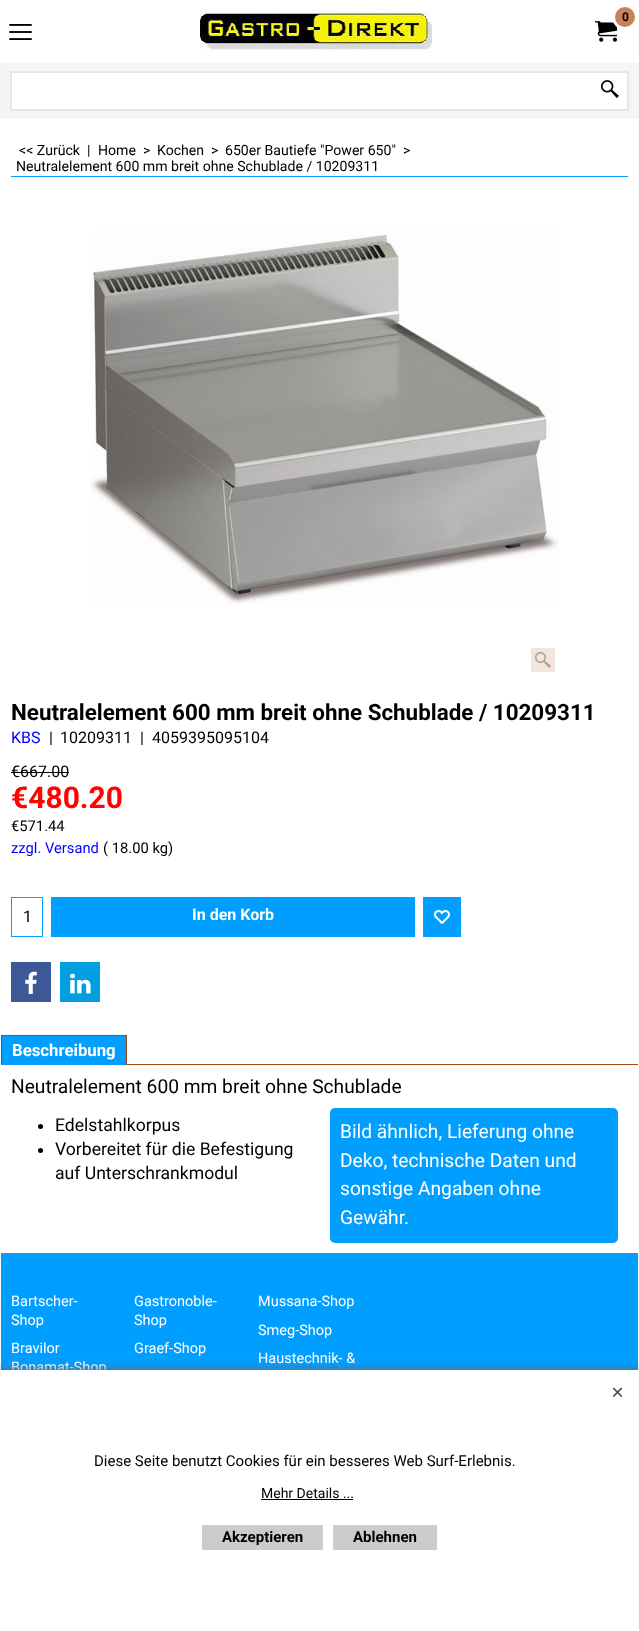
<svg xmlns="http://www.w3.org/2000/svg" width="639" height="1631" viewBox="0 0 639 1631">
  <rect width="100%" height="100%" fill="rgb(255,255,255)"/>
  <image x="200" y="9" width="232" height="45" href="pic1.png"/>
  <image x="595" y="21" width="22" height="21" href="pic2.png"/>
  <circle cx="625" cy="17" r="11.5" fill="rgb(198,130,88)" stroke="rgb(255,255,255)" stroke-width="3"/>
  <text x="622" y="21" font-family="Roboto" font-size="12" font-weight="bold" fill="rgb(0,0,0)">0</text>
  <image x="9" y="24" width="23" height="16" href="pic3.png"/>
  <rect x="0" y="63" width="639" height="56" fill="rgb(245,245,246)"/>
  <rect x="11" y="72" width="617" height="38" fill="rgb(255,255,255)" stroke="rgb(230,230,230)" stroke-width="2"/>
  <image x="601" y="80" width="18" height="18" href="pic4.png"/>
  <rect x="11" y="176" width="617" height="1" fill="rgb(0,159,255)"/>
  <g font-family="Roboto" font-size="14.1" fill="rgb(0,0,0)">
    <text x="19" y="155">&lt;&lt; Zurück</text>
    <text x="87" y="155">|</text>
    <text x="98" y="155">Home</text>
    <text x="143" y="155">&gt;</text>
    <text x="157" y="155">Kochen</text>
    <text x="211" y="155">&gt;</text>
    <text x="225" y="155">650er Bautiefe "Power 650"</text>
    <text x="403" y="155">&gt;</text>
    <text x="16" y="171">Neutralelement 600 mm breit ohne Schublade / 10209311</text>
  </g>
  <image x="90" y="231" width="469" height="374" href="pic5.png"/>
  <rect x="531" y="648" width="24" height="24" fill="rgb(244,229,220)"/>
  <image x="535" y="652" width="16" height="16" href="pic6.png"/>
  <text x="11" y="720" font-family="Roboto" font-size="22.4" font-weight="bold" fill="rgb(0,0,0)">Neutralelement 600 mm breit ohne Schublade / 10209311</text>
  <text x="11" y="743" font-family="Roboto" font-size="16" fill="rgb(0,0,255)">KBS</text>
  <g font-family="Roboto" font-size="16" fill="rgb(0,0,0)">
    <text x="49" y="743">|</text>
    <text x="60" y="743">10209311</text>
    <text x="140" y="743">|</text>
    <text x="152" y="743">4059395095104</text>
    <text x="11" y="777">€667.00</text>
  </g>
  <rect x="11" y="772" width="58" height="1" fill="rgb(0,0,0)"/>
  <text x="11" y="808" font-family="Roboto" font-size="30" font-weight="bold" fill="rgb(255,3,3)">€480.20</text>
  <text x="11" y="831" font-family="Roboto" font-size="14.75" fill="rgb(0,0,0)">€571.44</text>
  <text x="11" y="853" font-family="Roboto" font-size="14.75" fill="rgb(0,0,255)">zzgl. Versand</text>
  <text x="103" y="853" font-family="Roboto" font-size="14.75" fill="rgb(0,0,0)">( 18.00 kg)</text>
  <rect x="11" y="897" width="32" height="40" fill="rgb(0,159,255)"/>
  <rect x="12" y="898" width="30" height="38" fill="rgb(255,255,255)"/>
  <text x="23" y="922" font-family="Roboto" font-size="16" fill="rgb(0,0,0)">1</text>
  <rect x="51" y="897" width="364" height="40" fill="rgb(0,159,255)"/>
  <text x="192" y="920" font-family="Roboto" font-size="16" font-weight="bold" fill="rgb(255,255,255)">In den Korb</text>
  <rect x="423" y="897" width="38" height="40" fill="rgb(0,159,255)"/>
  <image x="434" y="910" width="16" height="14" href="pic7.png"/>
  <rect x="11" y="962" width="40" height="40" fill="rgb(60,88,151)"/>
  <image x="25" y="971" width="12" height="23" href="pic8.png"/>
  <rect x="60" y="962" width="40" height="40" fill="rgb(1,159,224)"/>
  <image x="70" y="973" width="21" height="21" href="pic9.png"/>
  <rect x="1" y="1036" width="126" height="29" fill="rgb(0,159,255)"/>
  <rect x="1" y="1035" width="126" height="1" fill="rgb(163,71,13)"/>
  <path d="M127 1035V1065L126 1064V1036Z" fill="rgb(163,71,13)"/>
  <path d="M1 1065V1035L2 1036V1064Z" fill="rgb(163,71,13)"/>
  <text x="12" y="1056" font-family="Roboto" font-size="16.75" font-weight="bold" fill="rgb(255,255,255)">Beschreibung</text>
  <rect x="127" y="1064" width="511" height="1" fill="rgb(163,71,13)"/>
  <text x="11" y="1093" font-family="Roboto" font-size="19.2" fill="rgb(0,0,0)">Neutralelement 600 mm breit ohne Schublade</text>
  <circle cx="40.5" cy="1126.5" r="2.5" fill="rgb(0,0,0)"/>
  <text x="55" y="1131" font-family="Roboto" font-size="17.6" fill="rgb(0,0,0)">Edelstahlkorpus</text>
  <circle cx="40.5" cy="1150.5" r="2.5" fill="rgb(0,0,0)"/>
  <g font-family="Roboto" font-size="17.6" fill="rgb(0,0,0)">
    <text>
      <tspan x="55" y="1155">Vorbereitet für die Befestigung</tspan>
      <tspan x="55" y="1179">auf Unterschrankmodul</tspan>
    </text>
  </g>
  <rect x="330" y="1108" width="288" height="135" rx="5" fill="rgb(0,159,255)"/>
  <g font-family="Roboto" font-size="19.2" fill="rgb(255,255,255)">
    <text>
      <tspan x="340" y="1138">Bild ähnlich, Lieferung ohne</tspan>
      <tspan x="340" y="1167">Deko, technische Daten und</tspan>
      <tspan x="340" y="1195">sonstige Angaben ohne</tspan>
      <tspan x="340" y="1224">Gewähr.</tspan>
    </text>
  </g>
  <rect x="1" y="1253" width="637" height="117" fill="rgb(0,159,255)"/>
  <g font-family="Roboto" font-size="14.5" fill="rgb(255,255,255)">
    <text>
      <tspan x="11" y="1306">Bartscher-</tspan>
      <tspan x="11" y="1325">Shop</tspan>
      <tspan x="11" y="1353">Bravilor</tspan>
      <tspan x="11" y="1372">Bonamat-Shop</tspan>
    </text>
    <text>
      <tspan x="134" y="1306">Gastronoble-</tspan>
      <tspan x="134" y="1325">Shop</tspan>
      <tspan x="134" y="1353">Graef-Shop</tspan>
    </text>
    <text x="258" y="1306">Mussana-Shop</text>
    <text>
      <tspan x="258" y="1335">Smeg-Shop</tspan>
      <tspan x="258" y="1363">Haustechnik- &amp;</tspan>
    </text>
  </g>
  <rect x="0" y="1370" width="639" height="261" fill="rgb(102,102,102)" filter="blur(5px)"/>
  <rect x="0" y="1370" width="639" height="261" fill="rgb(255,255,255)"/>
  <image x="612" y="1387" width="11" height="10" href="pic10.png"/>
  <text x="94" y="1466" font-family="Roboto" font-size="15" fill="rgb(0,0,0)">Diese Seite benutzt Cookies für ein besseres Web Surf-Erlebnis.</text>
  <text x="261" y="1498" font-family="Roboto" font-size="14" fill="rgb(0,0,0)">Mehr Details ...</text>
  <rect x="261" y="1499" width="92" height="1" fill="rgb(0,0,0)"/>
  <rect x="202" y="1525" width="121" height="25" fill="rgb(204,204,204)"/>
  <text x="222" y="1542" font-family="Roboto" font-size="15" font-weight="bold" fill="rgb(0,0,0)">Akzeptieren</text>
  <rect x="333" y="1525" width="104" height="25" fill="rgb(204,204,204)"/>
  <text x="353" y="1542" font-family="Roboto" font-size="15" font-weight="bold" fill="rgb(0,0,0)">Ablehnen</text>
</svg>
